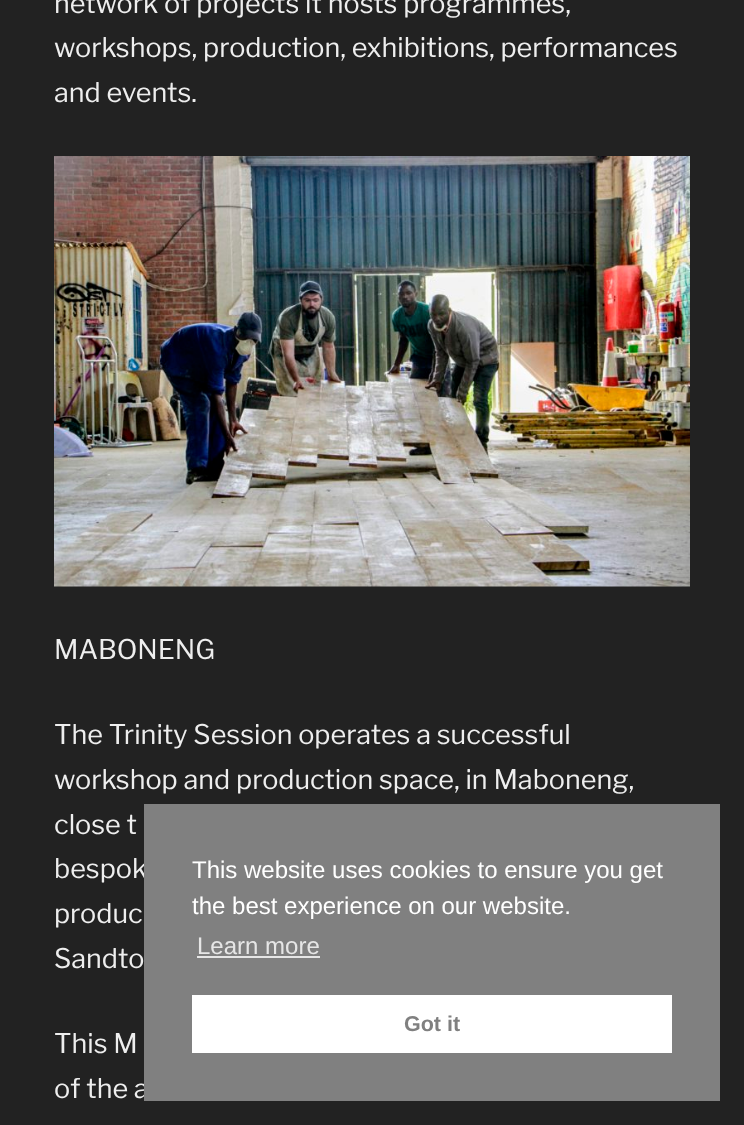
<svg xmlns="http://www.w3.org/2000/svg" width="744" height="1125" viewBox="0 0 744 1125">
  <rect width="100%" height="100%" fill="rgb(34,34,34)"/>
  <g font-family="Libre Franklin" font-size="27" fill="rgb(238,238,238)">
    <text>
      <tspan x="54" y="13">network of projects it hosts programmes,</tspan>
      <tspan x="54" y="57">workshops, production, exhibitions, performances</tspan>
      <tspan x="54" y="102">and events.</tspan>
    </text>
  </g>
  <image x="54" y="156" width="636" height="431" href="pic1.png"/>
  <g font-family="Libre Franklin" font-size="27" fill="rgb(238,238,238)">
    <text x="54" y="659">MABONENG</text>
    <text>
      <tspan x="54" y="744">The Trinity Session operates a successful</tspan>
      <tspan x="54" y="789">workshop and production space, in Maboneng,</tspan>
      <tspan x="54" y="834">close t</tspan>
      <tspan x="54" y="878">bespok</tspan>
      <tspan x="54" y="923">produc</tspan>
      <tspan x="54" y="968">Sandto</tspan>
    </text>
    <text>
      <tspan x="54" y="1053">This M</tspan>
      <tspan x="54" y="1098">of the a</tspan>
    </text>
  </g>
  <rect x="144" y="804" width="576" height="297" fill="rgb(128,128,128)"/>
  <g font-family="Liberation Sans" font-size="24" fill="rgb(255,255,255)">
    <text>
      <tspan x="192" y="878">This website uses cookies to ensure you get</tspan>
      <tspan x="192" y="914">the best experience on our website.</tspan>
    </text>
  </g>
  <text x="197" y="954" font-family="Liberation Sans" font-size="24" fill="rgb(230,230,230)">Learn more</text>
  <rect x="197" y="956" width="123" height="2" fill="rgb(230,230,230)"/>
  <rect x="192" y="995" width="480" height="58" fill="rgb(255,255,255)"/>
  <text x="404" y="1031" font-family="Liberation Sans" font-size="21.5" font-weight="bold" fill="rgb(128,128,128)">Got it</text>
</svg>
